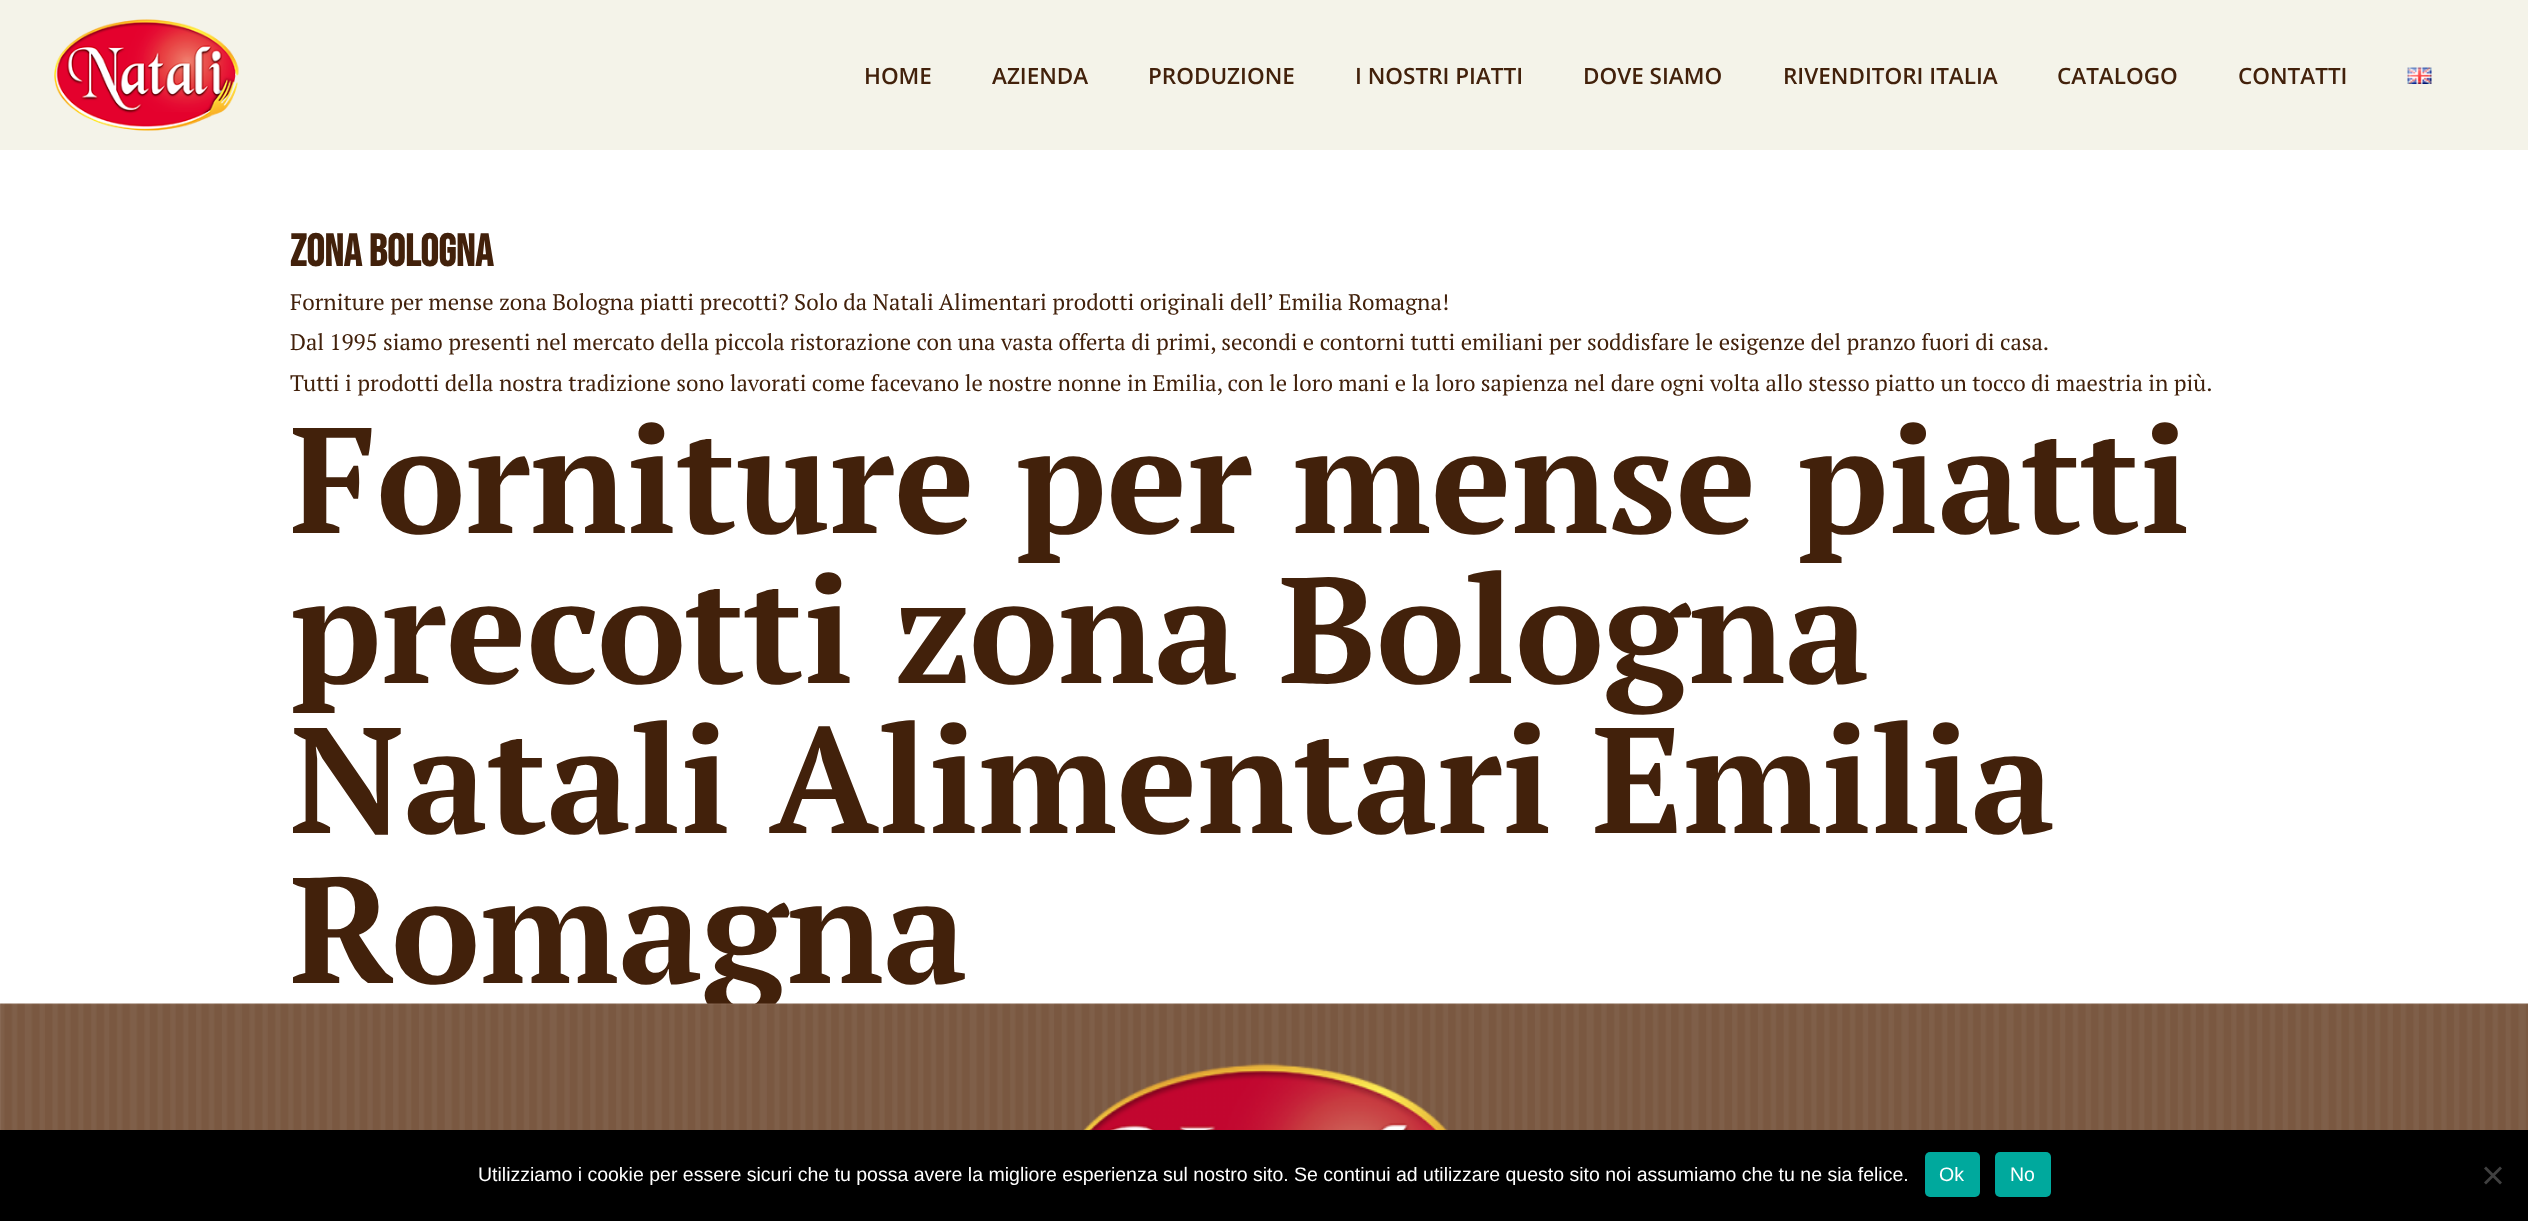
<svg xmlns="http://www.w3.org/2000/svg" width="2528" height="1221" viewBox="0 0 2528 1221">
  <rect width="100%" height="100%" fill="rgb(255,255,255)"/>
  <rect x="0" y="0" width="2528" height="150" fill="rgb(244,243,233)"/>
  <image x="54" y="19" width="185" height="112" href="pic1.png"/>
  <g font-family="Open Sans" font-size="22.5" font-weight="600" fill="rgb(66,33,11)">
    <text x="864" y="84">HOME</text>
    <text x="992" y="84">AZIENDA</text>
    <text x="1148" y="84">PRODUZIONE</text>
    <text x="1355" y="84">I NOSTRI PIATTI</text>
    <text x="1583" y="84">DOVE SIAMO</text>
    <text x="1783" y="84">RIVENDITORI ITALIA</text>
    <text x="2057" y="84">CATALOGO</text>
    <text x="2238" y="84">CONTATTI</text>
  </g>
  <image x="2407" y="67" width="25" height="17" href="pic2.png"/>
  <text x="290" y="266" font-family="Bebas Neue" font-size="45" font-weight="bold" fill="rgb(66,33,11)">zona Bologna</text>
  <g font-family="PT Serif" font-size="22.5" fill="rgb(66,33,11)">
    <text>
      <tspan x="290" y="310">Forniture per mense zona Bologna piatti precotti? Solo da Natali Alimentari prodotti originali dell’ Emilia Romagna!</tspan>
      <tspan x="290" y="350">Dal 1995 siamo presenti nel mercato della piccola ristorazione con una vasta offerta di primi, secondi e contorni tutti emiliani per soddisfare le esigenze del pranzo fuori di casa.</tspan>
      <tspan x="290" y="391">Tutti i prodotti della nostra tradizione sono lavorati come facevano le nostre nonne in Emilia, con le loro mani e la loro sapienza nel dare ogni volta allo stesso piatto un tocco di maestria in più.</tspan>
    </text>
  </g>
  <g font-family="PT Serif" font-size="150" font-weight="bold" fill="rgb(66,33,11)">
    <text>
      <tspan x="290" y="533">Forniture per mense piatti</tspan>
      <tspan x="290" y="683">precotti zona Bologna</tspan>
      <tspan x="290" y="833">Natali Alimentari Emilia</tspan>
      <tspan x="290" y="983">Romagna</tspan>
    </text>
  </g>
  <image x="0" y="1003" width="2528" height="127" href="pic3.png"/>
  <image x="1083" y="1063" width="365" height="67" href="pic4.png"/>
  <rect x="0" y="1130" width="2528" height="91" fill="rgb(0,0,0)"/>
  <text x="478" y="1181" font-family="Liberation Sans" font-size="19.5" fill="rgb(255,255,255)">Utilizziamo i cookie per essere sicuri che tu possa avere la migliore esperienza sul nostro sito. Se continui ad utilizzare questo sito noi assumiamo che tu ne sia felice.</text>
  <rect x="1925" y="1152" width="55" height="45" rx="5" fill="rgb(0,169,157)"/>
  <text x="1939" y="1181" font-family="Liberation Sans" font-size="19.5" fill="rgb(255,255,255)">Ok</text>
  <rect x="1995" y="1152" width="56" height="45" rx="5" fill="rgb(0,169,157)"/>
  <text x="2010" y="1181" font-family="Liberation Sans" font-size="19.5" fill="rgb(255,255,255)">No</text>
  <path d="M2500 1166.5L2502 1168.5L2486 1184.5L2484 1182.5Z" fill="rgb(64,64,64)"/>
  <path d="M2484 1168.5L2486 1166.5L2502 1182.5L2500 1184.5Z" fill="rgb(64,64,64)"/>
</svg>
